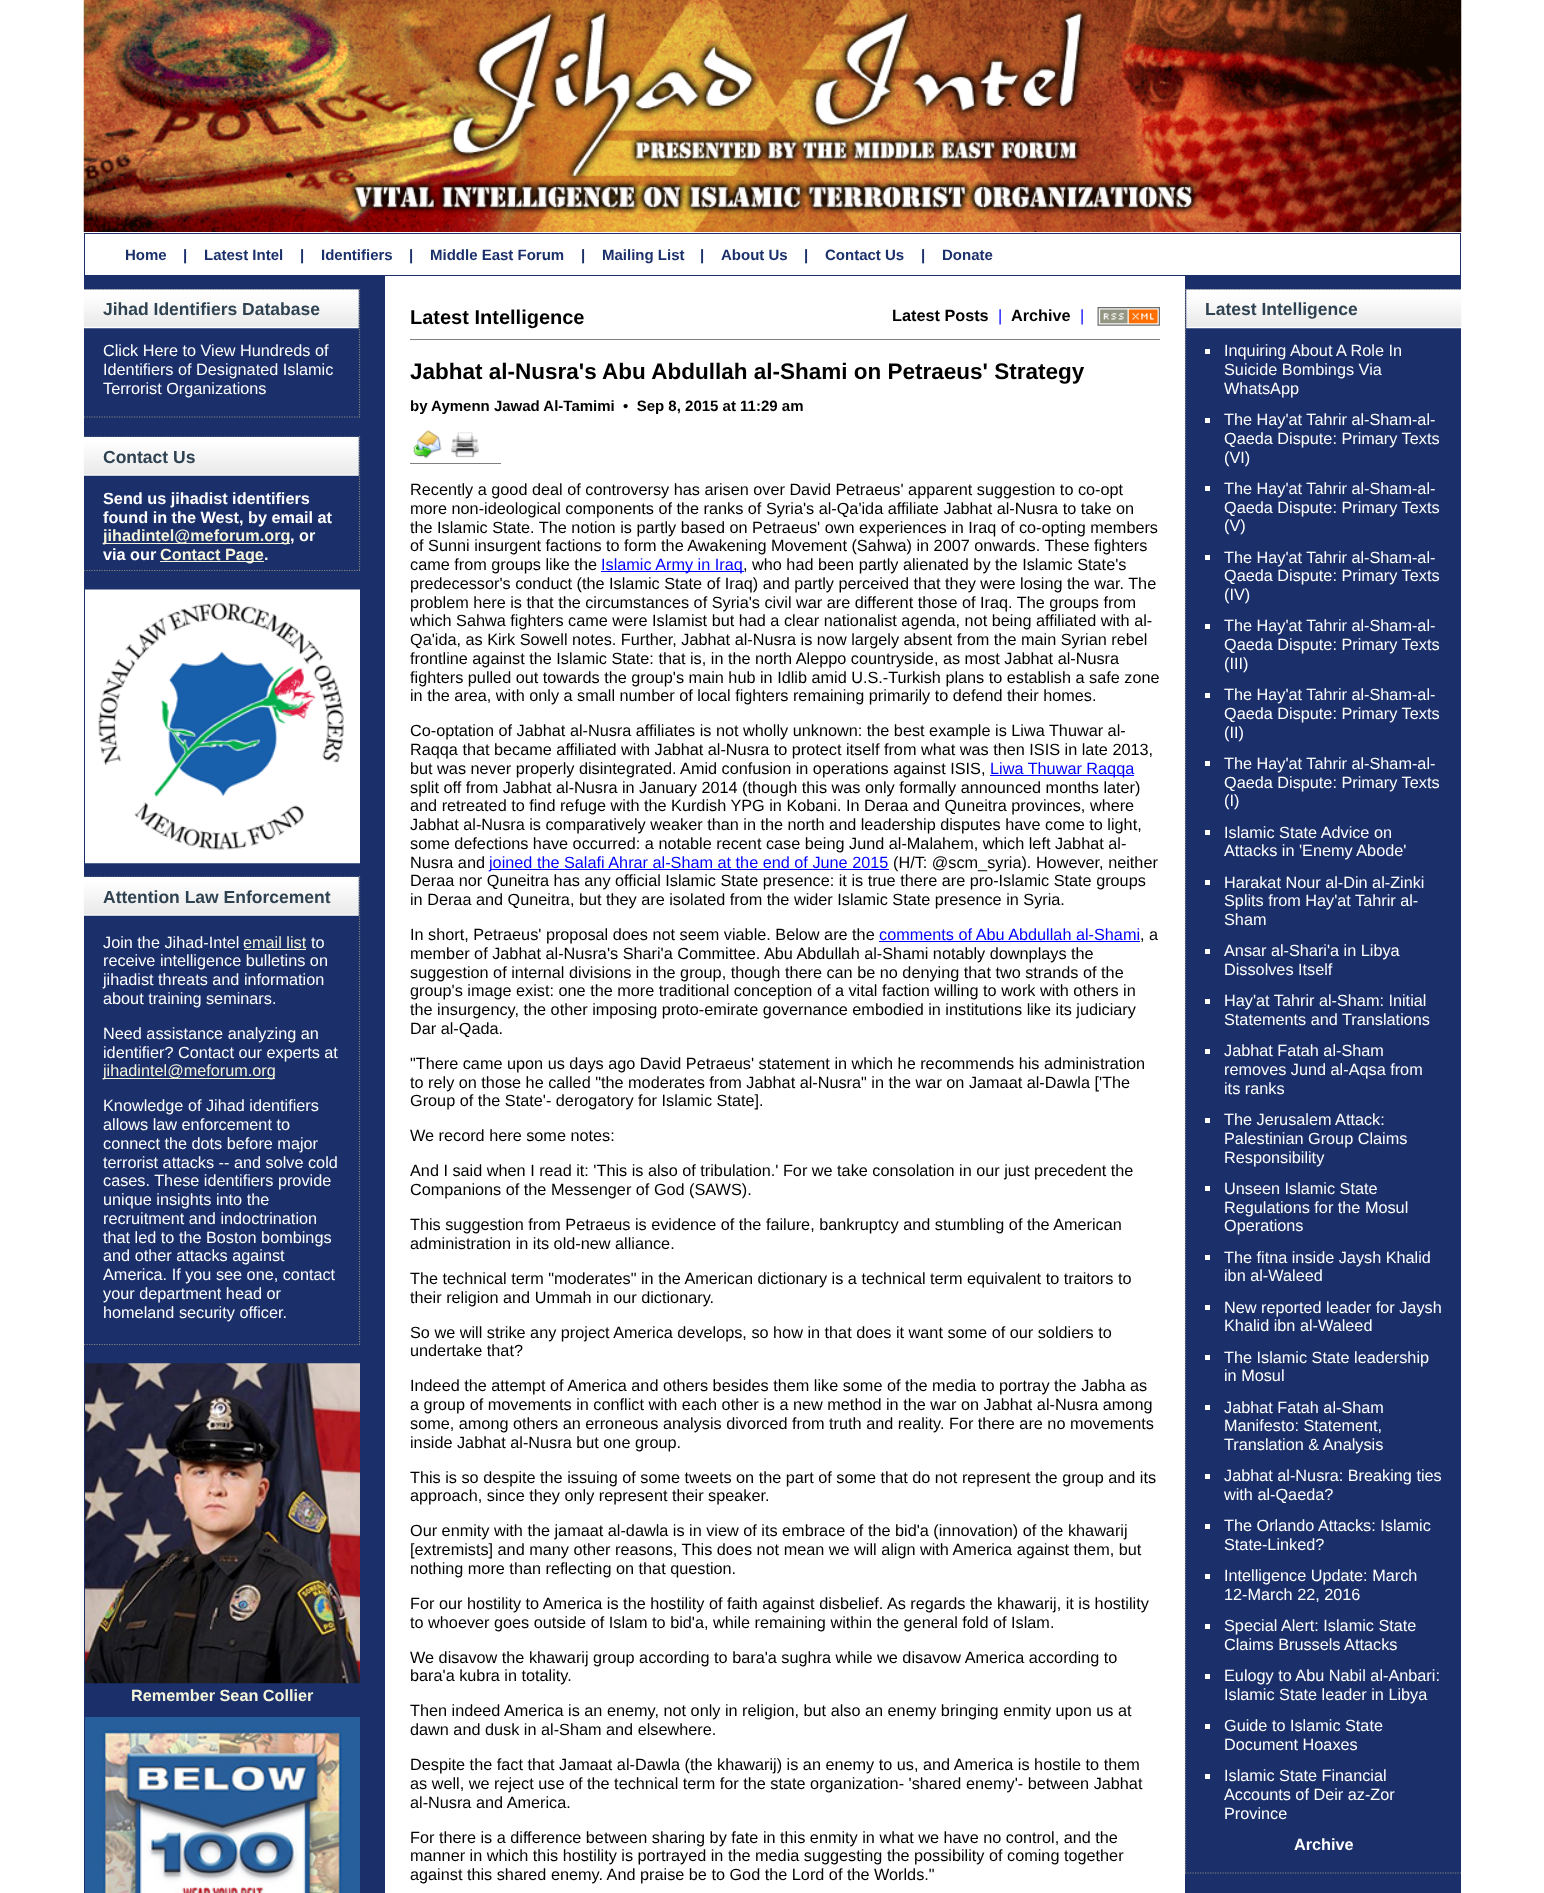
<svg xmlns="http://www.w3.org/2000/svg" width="1544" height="1893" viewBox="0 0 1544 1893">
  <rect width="100%" height="100%" fill="rgb(255,255,255)"/>
  <rect x="84" y="276" width="1377" height="1617" fill="rgb(27,48,107)"/>
  <image x="83" y="0" width="1379" height="232" href="pic1.png"/>
  <rect x="84.5" y="233.5" width="1376" height="42" fill="none" stroke="rgb(27,48,107)"/>
  <g font-family="Liberation Sans" font-size="15" font-weight="bold" fill="rgb(27,48,107)">
    <text x="125" y="260">Home</text>
    <text x="183" y="260">|</text>
    <text x="204" y="260">Latest Intel</text>
    <text x="300" y="260">|</text>
    <text x="321" y="260">Identifiers</text>
    <text x="409" y="260">|</text>
    <text x="430" y="260">Middle East Forum</text>
    <text x="581" y="260">|</text>
    <text x="602" y="260">Mailing List</text>
    <text x="700" y="260">|</text>
    <text x="721" y="260">About Us</text>
    <text x="804" y="260">|</text>
    <text x="825" y="260">Contact Us</text>
    <text x="921" y="260">|</text>
    <text x="942" y="260">Donate</text>
  </g>
  <path d="M84 289.5H360" fill="none" stroke="rgb(128,128,128)" stroke-width="1.2" stroke-dasharray="1.25 1.25"/>
  <path d="M359.5 289V417.5" fill="none" stroke="rgb(128,128,128)" stroke-width="1.2" stroke-dasharray="1.25 1.25"/>
  <path d="M84 417H360" fill="none" stroke="rgb(128,128,128)" stroke-width="1.2" stroke-dasharray="1.25 1.25"/>
  <image x="83" y="289" width="276" height="40" href="pic2.png"/>
  <text x="103" y="315" font-family="Liberation Sans" font-size="17.5" font-weight="bold" fill="rgb(47,66,81)">Jihad Identifiers Database</text>
  <g font-family="Liberation Sans" font-size="16.25" fill="rgb(255,255,255)">
    <text>
      <tspan x="103" y="356">Click Here to View Hundreds of</tspan>
      <tspan x="103" y="375">Identifiers of Designated Islamic</tspan>
      <tspan x="103" y="394">Terrorist Organizations</tspan>
    </text>
  </g>
  <path d="M84 437H360" fill="none" stroke="rgb(128,128,128)" stroke-width="1.2" stroke-dasharray="1.25 1.25"/>
  <path d="M359.5 436V571" fill="none" stroke="rgb(128,128,128)" stroke-width="1.2" stroke-dasharray="1.25 1.25"/>
  <path d="M84 570.5H360" fill="none" stroke="rgb(128,128,128)" stroke-width="1.2" stroke-dasharray="1.25 1.25"/>
  <image x="83" y="437" width="276" height="39" href="pic3.png"/>
  <text x="103" y="463" font-family="Liberation Sans" font-size="17.5" font-weight="bold" fill="rgb(47,66,81)">Contact Us</text>
  <g font-family="Liberation Sans" font-size="16.25" font-weight="bold" fill="rgb(255,255,255)">
    <text>
      <tspan x="103" y="504">Send us jihadist identifiers</tspan>
      <tspan x="103" y="523">found in the West, by email at</tspan>
    </text>
  </g>
  <rect x="103" y="543" width="187" height="1" fill="rgb(245,245,220)"/>
  <text x="103" y="541" font-family="Liberation Sans" font-size="16.25" font-weight="bold" fill="rgb(245,245,220)">jihadintel@meforum.org</text>
  <g font-family="Liberation Sans" font-size="16.25" font-weight="bold" fill="rgb(255,255,255)">
    <text x="290" y="541">, or</text>
    <text x="103" y="560">via our</text>
  </g>
  <rect x="160" y="561" width="104" height="1" fill="rgb(245,245,220)"/>
  <text x="160" y="560" font-family="Liberation Sans" font-size="16.25" font-weight="bold" fill="rgb(245,245,220)">Contact Page</text>
  <text x="264" y="560" font-family="Liberation Sans" font-size="16.25" font-weight="bold" fill="rgb(255,255,255)">.</text>
  <image x="85" y="589" width="275" height="275" href="pic4.png"/>
  <path d="M84 877H360" fill="none" stroke="rgb(128,128,128)" stroke-width="1.2" stroke-dasharray="1.25 1.25"/>
  <path d="M359.5 876V1345" fill="none" stroke="rgb(128,128,128)" stroke-width="1.2" stroke-dasharray="1.25 1.25"/>
  <path d="M84 1344.5H360" fill="none" stroke="rgb(128,128,128)" stroke-width="1.2" stroke-dasharray="1.25 1.25"/>
  <image x="83" y="877" width="276" height="39" href="pic5.png"/>
  <text x="103" y="903" font-family="Liberation Sans" font-size="17.5" font-weight="bold" fill="rgb(47,66,81)">Attention Law Enforcement</text>
  <text x="103" y="948" font-family="Liberation Sans" font-size="16.25" fill="rgb(255,255,255)">Join the Jihad-Intel</text>
  <text x="243" y="948" font-family="Liberation Sans" font-size="16.25" fill="rgb(245,245,220)">email list</text>
  <rect x="244" y="949" width="62" height="1" fill="rgb(245,245,220)"/>
  <g font-family="Liberation Sans" font-size="16.25" fill="rgb(255,255,255)">
    <text x="311" y="948">to</text>
    <text>
      <tspan x="103" y="966">receive intelligence bulletins on</tspan>
      <tspan x="103" y="985">jihadist threats and information</tspan>
      <tspan x="103" y="1004">about training seminars.</tspan>
    </text>
    <text>
      <tspan x="103" y="1039">Need assistance analyzing an</tspan>
      <tspan x="103" y="1058">identifier? Contact our experts at</tspan>
    </text>
  </g>
  <rect x="103" y="1078" width="172" height="1" fill="rgb(245,245,220)"/>
  <text x="103" y="1076" font-family="Liberation Sans" font-size="16.25" fill="rgb(245,245,220)">jihadintel@meforum.org</text>
  <g font-family="Liberation Sans" font-size="16.25" fill="rgb(255,255,255)">
    <text>
      <tspan x="103" y="1111">Knowledge of Jihad identifiers</tspan>
      <tspan x="103" y="1130">allows law enforcement to</tspan>
      <tspan x="103" y="1149">connect the dots before major</tspan>
      <tspan x="103" y="1168">terrorist attacks -- and solve cold</tspan>
      <tspan x="103" y="1186">cases. These identifiers provide</tspan>
      <tspan x="103" y="1205">unique insights into the</tspan>
      <tspan x="103" y="1224">recruitment and indoctrination</tspan>
      <tspan x="103" y="1243">that led to the Boston bombings</tspan>
      <tspan x="103" y="1261">and other attacks against</tspan>
      <tspan x="103" y="1280">America. If you see one, contact</tspan>
      <tspan x="103" y="1299">your department head or</tspan>
      <tspan x="103" y="1318">homeland security officer.</tspan>
    </text>
  </g>
  <image x="85" y="1363" width="275" height="321" href="pic6.png"/>
  <text x="131" y="1701" font-family="Liberation Sans" font-size="16.25" font-weight="bold" fill="rgb(245,245,220)">Remember Sean Collier</text>
  <image x="85" y="1717" width="275" height="176" href="pic7.png"/>
  <rect x="385" y="276" width="800" height="1617" fill="rgb(255,255,255)"/>
  <rect x="410" y="339" width="750" height="1" fill="rgb(128,128,128)"/>
  <text x="410" y="324" font-family="Liberation Sans" font-size="20" font-weight="bold" fill="rgb(0,0,0)">Latest Intelligence</text>
  <text x="892" y="321" font-family="Liberation Sans" font-size="16.25" font-weight="bold" fill="rgb(0,0,0)">Latest Posts</text>
  <text x="998" y="321" font-family="Liberation Sans" font-size="16.25" fill="rgb(0,0,255)">|</text>
  <text x="1011" y="321" font-family="Liberation Sans" font-size="16.25" font-weight="bold" fill="rgb(0,0,0)">Archive</text>
  <text x="1080" y="321" font-family="Liberation Sans" font-size="16.25" fill="rgb(0,0,255)">|</text>
  <image x="1097" y="307" width="63" height="19" href="pic8.png"/>
  <text x="410" y="379" font-family="Liberation Sans" font-size="22.5" font-weight="bold" fill="rgb(0,0,0)">Jabhat al-Nusra's Abu Abdullah al-Shami on Petraeus' Strategy</text>
  <text x="410" y="411" font-family="Liberation Sans" font-size="15" font-weight="bold" fill="rgb(0,0,0)" xml:space="preserve">by Aymenn Jawad Al-Tamimi  •  Sep 8, 2015 at 11:29 am</text>
  <rect x="410" y="463" width="91" height="1" fill="rgb(128,128,128)"/>
  <image x="413" y="430" width="29" height="29" href="pic9.png"/>
  <image x="451" y="432" width="28" height="26" href="pic10.png"/>
  <g font-family="Liberation Sans" font-size="16.25" fill="rgb(0,0,0)">
    <text>
      <tspan x="410" y="495">Recently a good deal of controversy has arisen over David Petraeus' apparent suggestion to co-opt</tspan>
      <tspan x="410" y="514">more non-ideological components of the ranks of Syria's al-Qa'ida affiliate Jabhat al-Nusra to take on</tspan>
      <tspan x="410" y="533">the Islamic State. The notion is partly based on Petraeus' own experiences in Iraq of co-opting members</tspan>
      <tspan x="410" y="551">of Sunni insurgent factions to form the Awakening Movement (Sahwa) in 2007 onwards. These fighters</tspan>
      <tspan x="410" y="570">came from groups like the</tspan>
    </text>
  </g>
  <rect x="601" y="571" width="143" height="1" fill="rgb(0,0,255)"/>
  <text x="601" y="570" font-family="Liberation Sans" font-size="16.25" fill="rgb(0,0,255)">Islamic Army in Iraq</text>
  <g font-family="Liberation Sans" font-size="16.25" fill="rgb(0,0,0)">
    <text x="743" y="570">, who had been partly alienated by the Islamic State's</text>
    <text>
      <tspan x="410" y="589">predecessor's conduct (the Islamic State of Iraq) and partly perceived that they were losing the war. The</tspan>
      <tspan x="410" y="608">problem here is that the circumstances of Syria's civil war are different those of Iraq. The groups from</tspan>
      <tspan x="410" y="626">which Sahwa fighters came were Islamist but had a clear nationalist agenda, not being affiliated with al-</tspan>
      <tspan x="410" y="645">Qa'ida, as Kirk Sowell notes. Further, Jabhat al-Nusra is now largely absent from the main Syrian rebel</tspan>
      <tspan x="410" y="664">frontline against the Islamic State: that is, in the north Aleppo countryside, as most Jabhat al-Nusra</tspan>
      <tspan x="410" y="683">fighters pulled out towards the group's main hub in Idlib amid U.S.-Turkish plans to establish a safe zone</tspan>
      <tspan x="410" y="701">in the area, with only a small number of local fighters remaining primarily to defend their homes.</tspan>
    </text>
    <text>
      <tspan x="410" y="736">Co-optation of Jabhat al-Nusra affiliates is not wholly unknown: the best example is Liwa Thuwar al-</tspan>
      <tspan x="410" y="755">Raqqa that became affiliated with Jabhat al-Nusra to protect itself from what was then ISIS in late 2013,</tspan>
      <tspan x="410" y="774">but was never properly disintegrated. Amid confusion in operations against ISIS,</tspan>
    </text>
  </g>
  <rect x="990" y="775" width="144" height="1" fill="rgb(0,0,255)"/>
  <text x="990" y="774" font-family="Liberation Sans" font-size="16.25" fill="rgb(0,0,255)">Liwa Thuwar Raqqa</text>
  <g font-family="Liberation Sans" font-size="16.25" fill="rgb(0,0,0)">
    <text>
      <tspan x="410" y="793">split off from Jabhat al-Nusra in January 2014 (though this was only formally announced months later)</tspan>
      <tspan x="410" y="811">and retreated to find refuge with the Kurdish YPG in Kobani. In Deraa and Quneitra provinces, where</tspan>
      <tspan x="410" y="830">Jabhat al-Nusra is comparatively weaker than in the north and leadership disputes have come to light,</tspan>
      <tspan x="410" y="849">some defections have occurred: a notable recent case being Jund al-Malahem, which left Jabhat al-</tspan>
      <tspan x="410" y="868">Nusra and</tspan>
    </text>
  </g>
  <rect x="490" y="869" width="399" height="1" fill="rgb(0,0,255)"/>
  <text x="489" y="868" font-family="Liberation Sans" font-size="16.25" fill="rgb(0,0,255)">joined the Salafi Ahrar al-Sham at the end of June 2015</text>
  <g font-family="Liberation Sans" font-size="16.25" fill="rgb(0,0,0)">
    <text x="893" y="868">(H/T: @scm_syria). However, neither</text>
    <text>
      <tspan x="410" y="886">Deraa nor Quneitra has any official Islamic State presence: it is true there are pro-Islamic State groups</tspan>
      <tspan x="410" y="905">in Deraa and Quneitra, but they are isolated from the wider Islamic State presence in Syria.</tspan>
    </text>
    <text x="410" y="940">In short, Petraeus' proposal does not seem viable. Below are the</text>
  </g>
  <text x="879" y="940" font-family="Liberation Sans" font-size="16.25" fill="rgb(0,0,255)">comments of Abu Abdullah al-Shami</text>
  <rect x="879" y="941" width="261" height="1" fill="rgb(0,0,255)"/>
  <g font-family="Liberation Sans" font-size="16.25" fill="rgb(0,0,0)">
    <text x="1140" y="940">, a</text>
    <text>
      <tspan x="410" y="959">member of Jabhat al-Nusra's Shari'a Committee. Abu Abdullah al-Shami notably downplays the</tspan>
      <tspan x="410" y="978">suggestion of internal divisions in the group, though there can be no denying that two strands of the</tspan>
      <tspan x="410" y="996">group's image exist: one the more traditional conception of a vital faction willing to work with others in</tspan>
      <tspan x="410" y="1015">the insurgency, the other imposing proto-emirate governance embodied in institutions like its judiciary</tspan>
      <tspan x="410" y="1034">Dar al-Qada.</tspan>
    </text>
    <text>
      <tspan x="410" y="1069">"There came upon us days ago David Petraeus' statement in which he recommends his administration</tspan>
      <tspan x="410" y="1088">to rely on those he called "the moderates from Jabhat al-Nusra" in the war on Jamaat al-Dawla ['The</tspan>
      <tspan x="410" y="1106">Group of the State'- derogatory for Islamic State].</tspan>
    </text>
    <text x="410" y="1141">We record here some notes:</text>
    <text>
      <tspan x="410" y="1176">And I said when I read it: 'This is also of tribulation.' For we take consolation in our just precedent the</tspan>
      <tspan x="410" y="1195">Companions of the Messenger of God (SAWS).</tspan>
    </text>
    <text>
      <tspan x="410" y="1230">This suggestion from Petraeus is evidence of the failure, bankruptcy and stumbling of the American</tspan>
      <tspan x="410" y="1249">administration in its old-new alliance.</tspan>
    </text>
    <text>
      <tspan x="410" y="1284">The technical term "moderates" in the American dictionary is a technical term equivalent to traitors to</tspan>
      <tspan x="410" y="1303">their religion and Ummah in our dictionary.</tspan>
    </text>
    <text>
      <tspan x="410" y="1338">So we will strike any project America develops, so how in that does it want some of our soldiers to</tspan>
      <tspan x="410" y="1356">undertake that?</tspan>
    </text>
    <text>
      <tspan x="410" y="1391">Indeed the attempt of America and others besides them like some of the media to portray the Jabha as</tspan>
      <tspan x="410" y="1410">a group of movements in conflict with each other is a new method in the war on Jabhat al-Nusra among</tspan>
      <tspan x="410" y="1429">some, among others an erroneous analysis divorced from truth and reality. For there are no movements</tspan>
      <tspan x="410" y="1448">inside Jabhat al-Nusra but one group.</tspan>
    </text>
    <text>
      <tspan x="410" y="1483">This is so despite the issuing of some tweets on the part of some that do not represent the group and its</tspan>
      <tspan x="410" y="1501">approach, since they only represent their speaker.</tspan>
    </text>
    <text>
      <tspan x="410" y="1536">Our enmity with the jamaat al-dawla is in view of its embrace of the bid'a (innovation) of the khawarij</tspan>
      <tspan x="410" y="1555">[extremists] and many other reasons, This does not mean we will align with America against them, but</tspan>
      <tspan x="410" y="1574">nothing more than reflecting on that question.</tspan>
    </text>
    <text>
      <tspan x="410" y="1609">For our hostility to America is the hostility of faith against disbelief. As regards the khawarij, it is hostility</tspan>
      <tspan x="410" y="1628">to whoever goes outside of Islam to bid'a, while remaining within the general fold of Islam.</tspan>
    </text>
    <text>
      <tspan x="410" y="1663">We disavow the khawarij group according to bara'a sughra while we disavow America according to</tspan>
      <tspan x="410" y="1681">bara'a kubra in totality.</tspan>
    </text>
    <text>
      <tspan x="410" y="1716">Then indeed America is an enemy, not only in religion, but also an enemy bringing enmity upon us at</tspan>
      <tspan x="410" y="1735">dawn and dusk in al-Sham and elsewhere.</tspan>
    </text>
    <text>
      <tspan x="410" y="1770">Despite the fact that Jamaat al-Dawla (the khawarij) is an enemy to us, and America is hostile to them</tspan>
      <tspan x="410" y="1789">as well, we reject use of the technical term for the state organization- 'shared enemy'- between Jabhat</tspan>
      <tspan x="410" y="1808">al-Nusra and America.</tspan>
    </text>
    <text>
      <tspan x="410" y="1843">For there is a difference between sharing by fate in this enmity in what we have no control, and the</tspan>
      <tspan x="410" y="1861">manner in which this hostility is portrayed in the media suggesting the possibility of coming together</tspan>
      <tspan x="410" y="1880">against this shared enemy. And praise be to God the Lord of the Worlds."</tspan>
    </text>
  </g>
  <path d="M1185 289.5H1461" fill="none" stroke="rgb(128,128,128)" stroke-width="1.2" stroke-dasharray="1.25 1.25"/>
  <path d="M1185 1873H1461" fill="none" stroke="rgb(128,128,128)" stroke-width="1.2" stroke-dasharray="1.25 1.25"/>
  <path d="M1185.5 289V1874" fill="none" stroke="rgb(128,128,128)" stroke-width="1.2" stroke-dasharray="1.25 1.25"/>
  <image x="1186" y="289" width="276" height="40" href="pic11.png"/>
  <text x="1205" y="315" font-family="Liberation Sans" font-size="17.5" font-weight="bold" fill="rgb(47,66,81)">Latest Intelligence</text>
  <rect x="1205" y="349" width="5" height="5" fill="rgb(255,255,255)"/>
  <g font-family="Liberation Sans" font-size="16.25" fill="rgb(255,255,255)">
    <text>
      <tspan x="1224" y="356">Inquiring About A Role In</tspan>
      <tspan x="1224" y="375">Suicide Bombings Via</tspan>
      <tspan x="1224" y="394">WhatsApp</tspan>
    </text>
  </g>
  <rect x="1205" y="418" width="5" height="5" fill="rgb(255,255,255)"/>
  <g font-family="Liberation Sans" font-size="16.25" fill="rgb(255,255,255)">
    <text>
      <tspan x="1224" y="425">The Hay'at Tahrir al-Sham-al-</tspan>
      <tspan x="1224" y="444">Qaeda Dispute: Primary Texts</tspan>
      <tspan x="1224" y="463">(VI)</tspan>
    </text>
  </g>
  <rect x="1205" y="486" width="5" height="5" fill="rgb(255,255,255)"/>
  <g font-family="Liberation Sans" font-size="16.25" fill="rgb(255,255,255)">
    <text>
      <tspan x="1224" y="494">The Hay'at Tahrir al-Sham-al-</tspan>
      <tspan x="1224" y="513">Qaeda Dispute: Primary Texts</tspan>
      <tspan x="1224" y="531">(V)</tspan>
    </text>
  </g>
  <rect x="1205" y="555" width="5" height="5" fill="rgb(255,255,255)"/>
  <g font-family="Liberation Sans" font-size="16.25" fill="rgb(255,255,255)">
    <text>
      <tspan x="1224" y="563">The Hay'at Tahrir al-Sham-al-</tspan>
      <tspan x="1224" y="581">Qaeda Dispute: Primary Texts</tspan>
      <tspan x="1224" y="600">(IV)</tspan>
    </text>
  </g>
  <rect x="1205" y="624" width="5" height="5" fill="rgb(255,255,255)"/>
  <g font-family="Liberation Sans" font-size="16.25" fill="rgb(255,255,255)">
    <text>
      <tspan x="1224" y="631">The Hay'at Tahrir al-Sham-al-</tspan>
      <tspan x="1224" y="650">Qaeda Dispute: Primary Texts</tspan>
      <tspan x="1224" y="669">(III)</tspan>
    </text>
  </g>
  <rect x="1205" y="693" width="5" height="5" fill="rgb(255,255,255)"/>
  <g font-family="Liberation Sans" font-size="16.25" fill="rgb(255,255,255)">
    <text>
      <tspan x="1224" y="700">The Hay'at Tahrir al-Sham-al-</tspan>
      <tspan x="1224" y="719">Qaeda Dispute: Primary Texts</tspan>
      <tspan x="1224" y="738">(II)</tspan>
    </text>
  </g>
  <rect x="1205" y="761" width="5" height="5" fill="rgb(255,255,255)"/>
  <g font-family="Liberation Sans" font-size="16.25" fill="rgb(255,255,255)">
    <text>
      <tspan x="1224" y="769">The Hay'at Tahrir al-Sham-al-</tspan>
      <tspan x="1224" y="788">Qaeda Dispute: Primary Texts</tspan>
      <tspan x="1224" y="806">(I)</tspan>
    </text>
  </g>
  <rect x="1205" y="830" width="5" height="5" fill="rgb(255,255,255)"/>
  <g font-family="Liberation Sans" font-size="16.25" fill="rgb(255,255,255)">
    <text>
      <tspan x="1224" y="838">Islamic State Advice on</tspan>
      <tspan x="1224" y="856">Attacks in 'Enemy Abode'</tspan>
    </text>
  </g>
  <rect x="1205" y="880" width="5" height="5" fill="rgb(255,255,255)"/>
  <g font-family="Liberation Sans" font-size="16.25" fill="rgb(255,255,255)">
    <text>
      <tspan x="1224" y="888">Harakat Nour al-Din al-Zinki</tspan>
      <tspan x="1224" y="906">Splits from Hay'at Tahrir al-</tspan>
      <tspan x="1224" y="925">Sham</tspan>
    </text>
  </g>
  <rect x="1205" y="949" width="5" height="5" fill="rgb(255,255,255)"/>
  <g font-family="Liberation Sans" font-size="16.25" fill="rgb(255,255,255)">
    <text>
      <tspan x="1224" y="956">Ansar al-Shari'a in Libya</tspan>
      <tspan x="1224" y="975">Dissolves Itself</tspan>
    </text>
  </g>
  <rect x="1205" y="999" width="5" height="5" fill="rgb(255,255,255)"/>
  <g font-family="Liberation Sans" font-size="16.25" fill="rgb(255,255,255)">
    <text>
      <tspan x="1224" y="1006">Hay'at Tahrir al-Sham: Initial</tspan>
      <tspan x="1224" y="1025">Statements and Translations</tspan>
    </text>
  </g>
  <rect x="1205" y="1049" width="5" height="5" fill="rgb(255,255,255)"/>
  <g font-family="Liberation Sans" font-size="16.25" fill="rgb(255,255,255)">
    <text>
      <tspan x="1224" y="1056">Jabhat Fatah al-Sham</tspan>
      <tspan x="1224" y="1075">removes Jund al-Aqsa from</tspan>
      <tspan x="1224" y="1094">its ranks</tspan>
    </text>
  </g>
  <rect x="1205" y="1118" width="5" height="5" fill="rgb(255,255,255)"/>
  <g font-family="Liberation Sans" font-size="16.25" fill="rgb(255,255,255)">
    <text>
      <tspan x="1224" y="1125">The Jerusalem Attack:</tspan>
      <tspan x="1224" y="1144">Palestinian Group Claims</tspan>
      <tspan x="1224" y="1163">Responsibility</tspan>
    </text>
  </g>
  <rect x="1205" y="1186" width="5" height="5" fill="rgb(255,255,255)"/>
  <g font-family="Liberation Sans" font-size="16.25" fill="rgb(255,255,255)">
    <text>
      <tspan x="1224" y="1194">Unseen Islamic State</tspan>
      <tspan x="1224" y="1213">Regulations for the Mosul</tspan>
      <tspan x="1224" y="1231">Operations</tspan>
    </text>
  </g>
  <rect x="1205" y="1255" width="5" height="5" fill="rgb(255,255,255)"/>
  <g font-family="Liberation Sans" font-size="16.25" fill="rgb(255,255,255)">
    <text>
      <tspan x="1224" y="1263">The fitna inside Jaysh Khalid</tspan>
      <tspan x="1224" y="1281">ibn al-Waleed</tspan>
    </text>
  </g>
  <rect x="1205" y="1305" width="5" height="5" fill="rgb(255,255,255)"/>
  <g font-family="Liberation Sans" font-size="16.25" fill="rgb(255,255,255)">
    <text>
      <tspan x="1224" y="1313">New reported leader for Jaysh</tspan>
      <tspan x="1224" y="1331">Khalid ibn al-Waleed</tspan>
    </text>
  </g>
  <rect x="1205" y="1355" width="5" height="5" fill="rgb(255,255,255)"/>
  <g font-family="Liberation Sans" font-size="16.25" fill="rgb(255,255,255)">
    <text>
      <tspan x="1224" y="1363">The Islamic State leadership</tspan>
      <tspan x="1224" y="1381">in Mosul</tspan>
    </text>
  </g>
  <rect x="1205" y="1405" width="5" height="5" fill="rgb(255,255,255)"/>
  <g font-family="Liberation Sans" font-size="16.25" fill="rgb(255,255,255)">
    <text>
      <tspan x="1224" y="1413">Jabhat Fatah al-Sham</tspan>
      <tspan x="1224" y="1431">Manifesto: Statement,</tspan>
      <tspan x="1224" y="1450">Translation &amp; Analysis</tspan>
    </text>
  </g>
  <rect x="1205" y="1474" width="5" height="5" fill="rgb(255,255,255)"/>
  <g font-family="Liberation Sans" font-size="16.25" fill="rgb(255,255,255)">
    <text>
      <tspan x="1224" y="1481">Jabhat al-Nusra: Breaking ties</tspan>
      <tspan x="1224" y="1500">with al-Qaeda?</tspan>
    </text>
  </g>
  <rect x="1205" y="1524" width="5" height="5" fill="rgb(255,255,255)"/>
  <g font-family="Liberation Sans" font-size="16.25" fill="rgb(255,255,255)">
    <text>
      <tspan x="1224" y="1531">The Orlando Attacks: Islamic</tspan>
      <tspan x="1224" y="1550">State-Linked?</tspan>
    </text>
  </g>
  <rect x="1205" y="1574" width="5" height="5" fill="rgb(255,255,255)"/>
  <g font-family="Liberation Sans" font-size="16.25" fill="rgb(255,255,255)">
    <text>
      <tspan x="1224" y="1581">Intelligence Update: March</tspan>
      <tspan x="1224" y="1600">12-March 22, 2016</tspan>
    </text>
  </g>
  <rect x="1205" y="1624" width="5" height="5" fill="rgb(255,255,255)"/>
  <g font-family="Liberation Sans" font-size="16.25" fill="rgb(255,255,255)">
    <text>
      <tspan x="1224" y="1631">Special Alert: Islamic State</tspan>
      <tspan x="1224" y="1650">Claims Brussels Attacks</tspan>
    </text>
  </g>
  <rect x="1205" y="1674" width="5" height="5" fill="rgb(255,255,255)"/>
  <g font-family="Liberation Sans" font-size="16.25" fill="rgb(255,255,255)">
    <text>
      <tspan x="1224" y="1681">Eulogy to Abu Nabil al-Anbari:</tspan>
      <tspan x="1224" y="1700">Islamic State leader in Libya</tspan>
    </text>
  </g>
  <rect x="1205" y="1724" width="5" height="5" fill="rgb(255,255,255)"/>
  <g font-family="Liberation Sans" font-size="16.25" fill="rgb(255,255,255)">
    <text>
      <tspan x="1224" y="1731">Guide to Islamic State</tspan>
      <tspan x="1224" y="1750">Document Hoaxes</tspan>
    </text>
  </g>
  <rect x="1205" y="1774" width="5" height="5" fill="rgb(255,255,255)"/>
  <g font-family="Liberation Sans" font-size="16.25" fill="rgb(255,255,255)">
    <text>
      <tspan x="1224" y="1781">Islamic State Financial</tspan>
      <tspan x="1224" y="1800">Accounts of Deir az-Zor</tspan>
      <tspan x="1224" y="1819">Province</tspan>
    </text>
  </g>
  <text x="1294" y="1850" font-family="Liberation Sans" font-size="16.25" font-weight="bold" fill="rgb(255,255,255)">Archive</text>
</svg>
